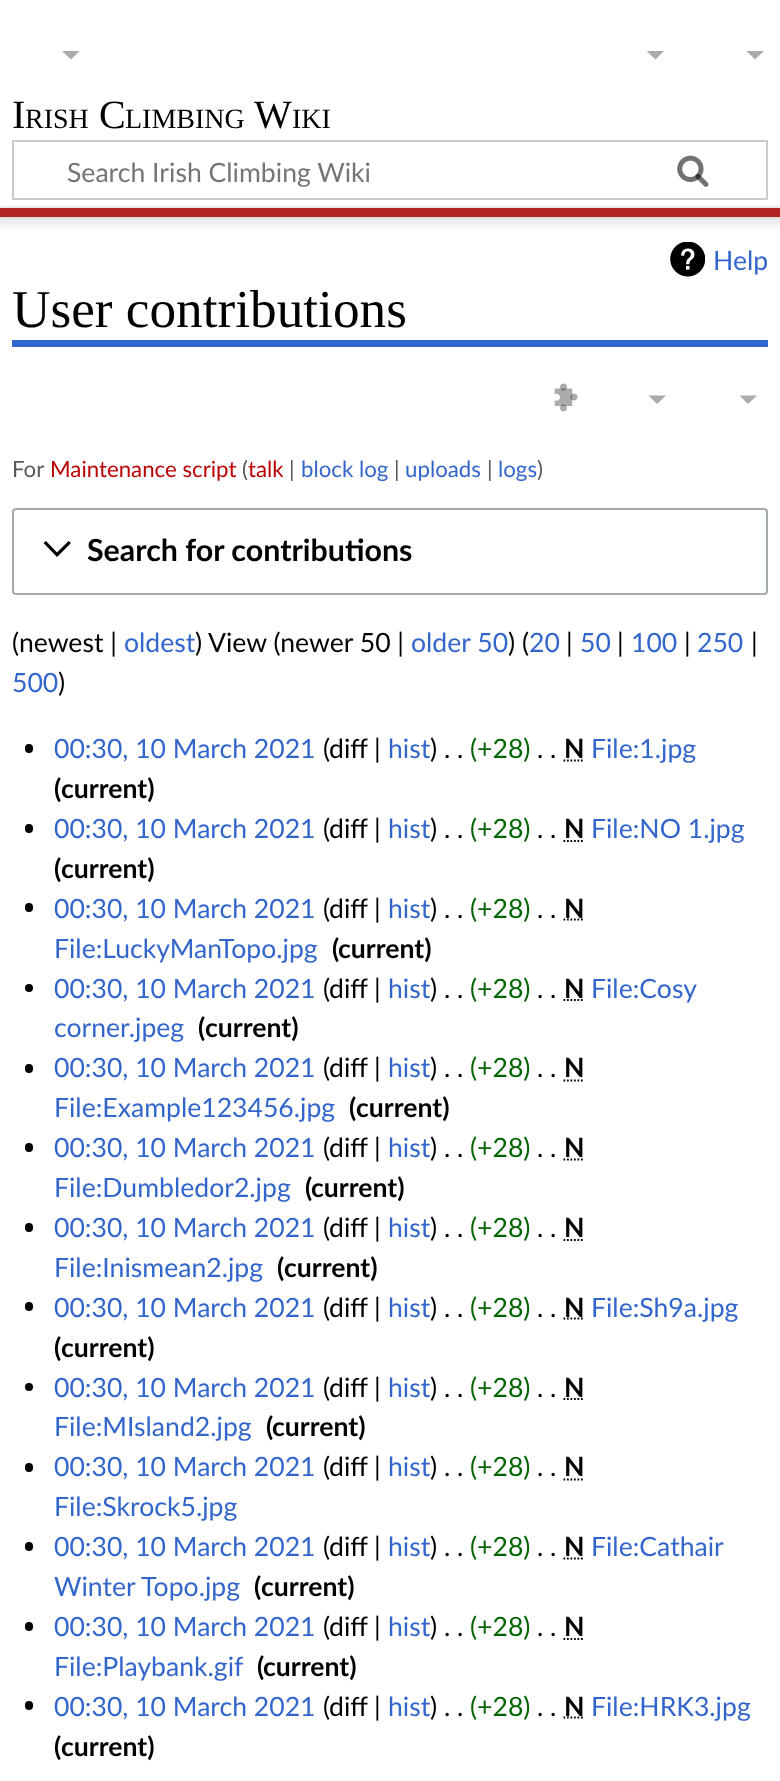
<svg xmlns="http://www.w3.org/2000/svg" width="780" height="1781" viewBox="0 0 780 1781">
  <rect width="100%" height="100%" fill="rgb(255,255,255)"/>
  <path d="M764 51L755 59.5L746.5 51Z" fill="rgb(171,171,171)"/>
  <text x="12" y="128" font-family="Liberation Serif" font-size="40" fill="rgb(0,0,0)">I</text>
  <text x="25" y="128" font-family="Liberation Serif" font-size="28" fill="rgb(0,0,0)">RISH</text>
  <text x="99" y="128" font-family="Liberation Serif" font-size="40" fill="rgb(0,0,0)">C</text>
  <text x="125" y="128" font-family="Liberation Serif" font-size="28" fill="rgb(0,0,0)">LIMBING</text>
  <text x="254" y="128" font-family="Liberation Serif" font-size="40" fill="rgb(0,0,0)">W</text>
  <text x="292" y="128" font-family="Liberation Serif" font-size="28" fill="rgb(0,0,0)">IKI</text>
  <rect x="13" y="141" width="754" height="58" fill="none" stroke="rgb(200,204,209)" stroke-width="2"/>
  <image x="677" y="155" width="32" height="32" href="pic1.png"/>
  <text x="67" y="182" font-family="Lato" font-size="26.6" fill="rgb(117,117,117)">Search Irish Climbing Wiki</text>
  <image x="677" y="155" width="32" height="32" href="pic2.png"/>
  <rect x="0" y="208" width="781" height="9" fill="rgba(0,0,0,0.2)" filter="blur(2px)"/>
  <rect x="-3" y="210" width="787" height="16" fill="rgba(0,0,0,0.07)" filter="blur(2.5px)"/>
  <rect x="0" y="208" width="780" height="9" fill="rgb(179,36,36)"/>
  <path d="M79.5 51L71 59.5L62 51Z" fill="rgb(171,171,171)"/>
  <path d="M664 51L655.5 59.5L646.5 51Z" fill="rgb(171,171,171)"/>
  <image x="670" y="242" width="35" height="35" href="pic3.png"/>
  <text x="713" y="270" font-family="Lato" font-size="26.6" fill="rgb(51,102,204)">Help</text>
  <rect x="12" y="340" width="756" height="7" fill="rgb(51,102,204)"/>
  <text x="12" y="327" font-family="Liberation Serif" font-size="53.25" fill="rgb(0,0,0)">User contributions</text>
  <image x="554" y="383" width="24" height="29" href="pic4.png"/>
  <path d="M666 395.5L657 404L648.5 395.5Z" fill="rgb(171,171,171)"/>
  <path d="M757 395.5L748 404L739.5 395.5Z" fill="rgb(171,171,171)"/>
  <text x="12" y="477" font-family="Lato" font-size="22.25" fill="rgb(84,89,93)">For</text>
  <text x="50" y="477" font-family="Lato" font-size="22.25" fill="rgb(186,0,0)">Maintenance script</text>
  <text x="242" y="477" font-family="Lato" font-size="22.25" fill="rgb(84,89,93)">(</text>
  <text x="248" y="477" font-family="Lato" font-size="22.25" fill="rgb(186,0,0)">talk</text>
  <text x="289" y="477" font-family="Lato" font-size="22.25" fill="rgb(84,89,93)">|</text>
  <text x="301" y="477" font-family="Lato" font-size="22.25" fill="rgb(51,102,204)">block log</text>
  <text x="394" y="477" font-family="Lato" font-size="22.25" fill="rgb(84,89,93)">|</text>
  <text x="405" y="477" font-family="Lato" font-size="22.25" fill="rgb(51,102,204)">uploads</text>
  <text x="487" y="477" font-family="Lato" font-size="22.25" fill="rgb(84,89,93)">|</text>
  <text x="498" y="477" font-family="Lato" font-size="22.25" fill="rgb(51,102,204)">logs</text>
  <text x="537" y="477" font-family="Lato" font-size="22.25" fill="rgb(84,89,93)">)</text>
  <rect x="13" y="509" width="754" height="85" rx="3" fill="none" stroke="rgb(162,169,177)" stroke-width="2"/>
  <path d="M68.5 541L57 552.5L46 541L43.5 543L57 557L71 543Z" fill="rgb(0,0,0)"/>
  <text x="87" y="561" font-family="Lato" font-size="30.4" font-weight="bold" fill="rgb(0,0,0)">Search for contributions</text>
  <text x="12" y="652" font-family="Lato" font-size="26.6" fill="rgb(0,0,0)">(newest |</text>
  <text x="124" y="652" font-family="Lato" font-size="26.6" fill="rgb(51,102,204)">oldest</text>
  <text x="195" y="652" font-family="Lato" font-size="26.6" fill="rgb(0,0,0)">) View (newer 50 |</text>
  <text x="411" y="652" font-family="Lato" font-size="26.6" fill="rgb(51,102,204)">older 50</text>
  <text x="508" y="652" font-family="Lato" font-size="26.6" fill="rgb(0,0,0)">) (</text>
  <text x="529" y="652" font-family="Lato" font-size="26.6" fill="rgb(51,102,204)">20</text>
  <text x="566" y="652" font-family="Lato" font-size="26.6" fill="rgb(0,0,0)">|</text>
  <text x="580" y="652" font-family="Lato" font-size="26.6" fill="rgb(51,102,204)">50</text>
  <text x="617" y="652" font-family="Lato" font-size="26.6" fill="rgb(0,0,0)">|</text>
  <text x="631" y="652" font-family="Lato" font-size="26.6" fill="rgb(51,102,204)">100</text>
  <text x="684" y="652" font-family="Lato" font-size="26.6" fill="rgb(0,0,0)">|</text>
  <text x="697" y="652" font-family="Lato" font-size="26.6" fill="rgb(51,102,204)">250</text>
  <text x="751" y="652" font-family="Lato" font-size="26.6" fill="rgb(0,0,0)">|</text>
  <text x="12" y="692" font-family="Lato" font-size="26.6" fill="rgb(51,102,204)">500</text>
  <text x="58" y="692" font-family="Lato" font-size="26.6" fill="rgb(0,0,0)">)</text>
  <rect x="25" y="744" width="8" height="9" rx="4" fill="rgb(0,0,0)"/>
  <text x="54" y="758" font-family="Lato" font-size="26.6" fill="rgb(51,102,204)">00:30, 10 March 2021</text>
  <g font-family="Lato" font-size="26.6" fill="rgb(0,0,0)">
    <text x="323" y="758">(</text>
    <text x="329" y="758">diff</text>
    <text x="374" y="758">|</text>
  </g>
  <text x="388" y="758" font-family="Lato" font-size="26.6" fill="rgb(51,102,204)">hist</text>
  <text x="430" y="758" font-family="Lato" font-size="26.6" fill="rgb(0,0,0)">) . .</text>
  <text x="470" y="758" font-family="Lato" font-size="26.6" fill="rgb(0,100,0)">(+28)</text>
  <text x="564" y="758" font-family="Lato" font-size="26.6" font-weight="bold" fill="rgb(0,0,0)">N</text>
  <path d="M563.5 760.5H584" fill="none" stroke="rgb(0,0,0)" stroke-width="1.8" stroke-dasharray="1.75 1.75"/>
  <text x="591" y="758" font-family="Lato" font-size="26.6" fill="rgb(51,102,204)">File:1.jpg</text>
  <text x="537" y="758" font-family="Lato" font-size="26.6" fill="rgb(0,0,0)">. .</text>
  <g font-family="Lato" font-size="26.6" font-weight="bold" fill="rgb(0,0,0)">
    <text x="54" y="798">(</text>
    <text x="61" y="798">current)</text>
  </g>
  <rect x="25" y="824" width="8" height="9" rx="4" fill="rgb(0,0,0)"/>
  <text x="54" y="838" font-family="Lato" font-size="26.6" fill="rgb(51,102,204)">00:30, 10 March 2021</text>
  <g font-family="Lato" font-size="26.6" fill="rgb(0,0,0)">
    <text x="323" y="838">(</text>
    <text x="329" y="838">diff</text>
    <text x="374" y="838">|</text>
  </g>
  <text x="388" y="838" font-family="Lato" font-size="26.6" fill="rgb(51,102,204)">hist</text>
  <text x="430" y="838" font-family="Lato" font-size="26.6" fill="rgb(0,0,0)">) . .</text>
  <text x="470" y="838" font-family="Lato" font-size="26.6" fill="rgb(0,100,0)">(+28)</text>
  <text x="564" y="838" font-family="Lato" font-size="26.6" font-weight="bold" fill="rgb(0,0,0)">N</text>
  <path d="M563.5 841H584" fill="none" stroke="rgb(0,0,0)" stroke-width="1.8" stroke-dasharray="1.75 1.75"/>
  <text x="591" y="838" font-family="Lato" font-size="26.6" fill="rgb(51,102,204)">File:NO 1.jpg</text>
  <text x="537" y="838" font-family="Lato" font-size="26.6" fill="rgb(0,0,0)">. .</text>
  <g font-family="Lato" font-size="26.6" font-weight="bold" fill="rgb(0,0,0)">
    <text x="54" y="878">(</text>
    <text x="61" y="878">current)</text>
  </g>
  <rect x="25" y="903" width="8" height="9" rx="4" fill="rgb(0,0,0)"/>
  <text x="54" y="918" font-family="Lato" font-size="26.6" fill="rgb(51,102,204)">00:30, 10 March 2021</text>
  <g font-family="Lato" font-size="26.6" fill="rgb(0,0,0)">
    <text x="323" y="918">(</text>
    <text x="329" y="918">diff</text>
    <text x="374" y="918">|</text>
  </g>
  <text x="388" y="918" font-family="Lato" font-size="26.6" fill="rgb(51,102,204)">hist</text>
  <text x="430" y="918" font-family="Lato" font-size="26.6" fill="rgb(0,0,0)">) . .</text>
  <text x="470" y="918" font-family="Lato" font-size="26.6" fill="rgb(0,100,0)">(+28)</text>
  <text x="564" y="918" font-family="Lato" font-size="26.6" font-weight="bold" fill="rgb(0,0,0)">N</text>
  <path d="M563.5 919.5H584" fill="none" stroke="rgb(0,0,0)" stroke-width="1.8" stroke-dasharray="1.75 1.75"/>
  <text x="537" y="918" font-family="Lato" font-size="26.6" fill="rgb(0,0,0)">. .</text>
  <text x="54" y="958" font-family="Lato" font-size="26.6" fill="rgb(51,102,204)">File:LuckyManTopo.jpg</text>
  <g font-family="Lato" font-size="26.6" font-weight="bold" fill="rgb(0,0,0)">
    <text x="332" y="958">(</text>
    <text x="338" y="958">current)</text>
  </g>
  <circle cx="29" cy="988" r="4" fill="rgb(0,0,0)"/>
  <text x="54" y="998" font-family="Lato" font-size="26.6" fill="rgb(51,102,204)">00:30, 10 March 2021</text>
  <g font-family="Lato" font-size="26.6" fill="rgb(0,0,0)">
    <text x="323" y="998">(</text>
    <text x="329" y="998">diff</text>
    <text x="374" y="998">|</text>
  </g>
  <text x="388" y="998" font-family="Lato" font-size="26.6" fill="rgb(51,102,204)">hist</text>
  <text x="430" y="998" font-family="Lato" font-size="26.6" fill="rgb(0,0,0)">) . .</text>
  <text x="470" y="998" font-family="Lato" font-size="26.6" fill="rgb(0,100,0)">(+28)</text>
  <text x="564" y="998" font-family="Lato" font-size="26.6" font-weight="bold" fill="rgb(0,0,0)">N</text>
  <path d="M563.5 1000H584" fill="none" stroke="rgb(0,0,0)" stroke-width="1.8" stroke-dasharray="1.75 1.75"/>
  <text x="591" y="998" font-family="Lato" font-size="26.6" fill="rgb(51,102,204)">File:Cosy</text>
  <text x="537" y="998" font-family="Lato" font-size="26.6" fill="rgb(0,0,0)">. .</text>
  <text x="54" y="1037" font-family="Lato" font-size="26.6" fill="rgb(51,102,204)">corner.jpeg</text>
  <g font-family="Lato" font-size="26.6" font-weight="bold" fill="rgb(0,0,0)">
    <text x="198" y="1037">(</text>
    <text x="205" y="1037">current)</text>
  </g>
  <rect x="25" y="1064" width="8" height="9" rx="4" fill="rgb(0,0,0)"/>
  <text x="54" y="1077" font-family="Lato" font-size="26.6" fill="rgb(51,102,204)">00:30, 10 March 2021</text>
  <g font-family="Lato" font-size="26.6" fill="rgb(0,0,0)">
    <text x="323" y="1077">(</text>
    <text x="329" y="1077">diff</text>
    <text x="374" y="1077">|</text>
  </g>
  <text x="388" y="1077" font-family="Lato" font-size="26.6" fill="rgb(51,102,204)">hist</text>
  <text x="430" y="1077" font-family="Lato" font-size="26.6" fill="rgb(0,0,0)">) . .</text>
  <text x="470" y="1077" font-family="Lato" font-size="26.6" fill="rgb(0,100,0)">(+28)</text>
  <text x="564" y="1077" font-family="Lato" font-size="26.6" font-weight="bold" fill="rgb(0,0,0)">N</text>
  <path d="M563.5 1080.5H584" fill="none" stroke="rgb(0,0,0)" stroke-width="1.8" stroke-dasharray="1.75 1.75"/>
  <text x="537" y="1077" font-family="Lato" font-size="26.6" fill="rgb(0,0,0)">. .</text>
  <text x="54" y="1117" font-family="Lato" font-size="26.6" fill="rgb(51,102,204)">File:Example123456.jpg</text>
  <g font-family="Lato" font-size="26.6" font-weight="bold" fill="rgb(0,0,0)">
    <text x="349" y="1117">(</text>
    <text x="356" y="1117">current)</text>
  </g>
  <rect x="25" y="1143" width="8" height="9" rx="4" fill="rgb(0,0,0)"/>
  <text x="54" y="1157" font-family="Lato" font-size="26.6" fill="rgb(51,102,204)">00:30, 10 March 2021</text>
  <g font-family="Lato" font-size="26.6" fill="rgb(0,0,0)">
    <text x="323" y="1157">(</text>
    <text x="329" y="1157">diff</text>
    <text x="374" y="1157">|</text>
  </g>
  <text x="388" y="1157" font-family="Lato" font-size="26.6" fill="rgb(51,102,204)">hist</text>
  <text x="430" y="1157" font-family="Lato" font-size="26.6" fill="rgb(0,0,0)">) . .</text>
  <text x="470" y="1157" font-family="Lato" font-size="26.6" fill="rgb(0,100,0)">(+28)</text>
  <text x="564" y="1157" font-family="Lato" font-size="26.6" font-weight="bold" fill="rgb(0,0,0)">N</text>
  <path d="M563.5 1159.5H584" fill="none" stroke="rgb(0,0,0)" stroke-width="1.8" stroke-dasharray="1.75 1.75"/>
  <text x="537" y="1157" font-family="Lato" font-size="26.6" fill="rgb(0,0,0)">. .</text>
  <text x="54" y="1197" font-family="Lato" font-size="26.6" fill="rgb(51,102,204)">File:Dumbledor2.jpg</text>
  <g font-family="Lato" font-size="26.6" font-weight="bold" fill="rgb(0,0,0)">
    <text x="305" y="1197">(</text>
    <text x="311" y="1197">current)</text>
  </g>
  <rect x="25" y="1223" width="8" height="9" rx="4" fill="rgb(0,0,0)"/>
  <text x="54" y="1237" font-family="Lato" font-size="26.6" fill="rgb(51,102,204)">00:30, 10 March 2021</text>
  <g font-family="Lato" font-size="26.6" fill="rgb(0,0,0)">
    <text x="323" y="1237">(</text>
    <text x="329" y="1237">diff</text>
    <text x="374" y="1237">|</text>
  </g>
  <text x="388" y="1237" font-family="Lato" font-size="26.6" fill="rgb(51,102,204)">hist</text>
  <text x="430" y="1237" font-family="Lato" font-size="26.6" fill="rgb(0,0,0)">) . .</text>
  <text x="470" y="1237" font-family="Lato" font-size="26.6" fill="rgb(0,100,0)">(+28)</text>
  <text x="564" y="1237" font-family="Lato" font-size="26.6" font-weight="bold" fill="rgb(0,0,0)">N</text>
  <path d="M563.5 1240H584" fill="none" stroke="rgb(0,0,0)" stroke-width="1.8" stroke-dasharray="1.75 1.75"/>
  <text x="537" y="1237" font-family="Lato" font-size="26.6" fill="rgb(0,0,0)">. .</text>
  <text x="54" y="1277" font-family="Lato" font-size="26.6" fill="rgb(51,102,204)">File:Inismean2.jpg</text>
  <g font-family="Lato" font-size="26.6" font-weight="bold" fill="rgb(0,0,0)">
    <text x="277" y="1277">(</text>
    <text x="284" y="1277">current)</text>
  </g>
  <rect x="25" y="1302" width="8" height="9" rx="4" fill="rgb(0,0,0)"/>
  <text x="54" y="1317" font-family="Lato" font-size="26.6" fill="rgb(51,102,204)">00:30, 10 March 2021</text>
  <g font-family="Lato" font-size="26.6" fill="rgb(0,0,0)">
    <text x="323" y="1317">(</text>
    <text x="329" y="1317">diff</text>
    <text x="374" y="1317">|</text>
  </g>
  <text x="388" y="1317" font-family="Lato" font-size="26.6" fill="rgb(51,102,204)">hist</text>
  <text x="430" y="1317" font-family="Lato" font-size="26.6" fill="rgb(0,0,0)">) . .</text>
  <text x="470" y="1317" font-family="Lato" font-size="26.6" fill="rgb(0,100,0)">(+28)</text>
  <text x="564" y="1317" font-family="Lato" font-size="26.6" font-weight="bold" fill="rgb(0,0,0)">N</text>
  <path d="M563.5 1318.5H584" fill="none" stroke="rgb(0,0,0)" stroke-width="1.8" stroke-dasharray="1.75 1.75"/>
  <text x="591" y="1317" font-family="Lato" font-size="26.6" fill="rgb(51,102,204)">File:Sh9a.jpg</text>
  <text x="537" y="1317" font-family="Lato" font-size="26.6" fill="rgb(0,0,0)">. .</text>
  <g font-family="Lato" font-size="26.6" font-weight="bold" fill="rgb(0,0,0)">
    <text x="54" y="1357">(</text>
    <text x="61" y="1357">current)</text>
  </g>
  <circle cx="29" cy="1387" r="4" fill="rgb(0,0,0)"/>
  <text x="54" y="1397" font-family="Lato" font-size="26.6" fill="rgb(51,102,204)">00:30, 10 March 2021</text>
  <g font-family="Lato" font-size="26.6" fill="rgb(0,0,0)">
    <text x="323" y="1397">(</text>
    <text x="329" y="1397">diff</text>
    <text x="374" y="1397">|</text>
  </g>
  <text x="388" y="1397" font-family="Lato" font-size="26.6" fill="rgb(51,102,204)">hist</text>
  <text x="430" y="1397" font-family="Lato" font-size="26.6" fill="rgb(0,0,0)">) . .</text>
  <text x="470" y="1397" font-family="Lato" font-size="26.6" fill="rgb(0,100,0)">(+28)</text>
  <text x="564" y="1397" font-family="Lato" font-size="26.6" font-weight="bold" fill="rgb(0,0,0)">N</text>
  <path d="M563.5 1399H584" fill="none" stroke="rgb(0,0,0)" stroke-width="1.8" stroke-dasharray="1.75 1.75"/>
  <text x="537" y="1397" font-family="Lato" font-size="26.6" fill="rgb(0,0,0)">. .</text>
  <text x="54" y="1436" font-family="Lato" font-size="26.6" fill="rgb(51,102,204)">File:MIsland2.jpg</text>
  <g font-family="Lato" font-size="26.6" font-weight="bold" fill="rgb(0,0,0)">
    <text x="266" y="1436">(</text>
    <text x="272" y="1436">current)</text>
  </g>
  <rect x="25" y="1463" width="8" height="9" rx="4" fill="rgb(0,0,0)"/>
  <text x="54" y="1476" font-family="Lato" font-size="26.6" fill="rgb(51,102,204)">00:30, 10 March 2021</text>
  <g font-family="Lato" font-size="26.6" fill="rgb(0,0,0)">
    <text x="323" y="1476">(</text>
    <text x="329" y="1476">diff</text>
    <text x="374" y="1476">|</text>
  </g>
  <text x="388" y="1476" font-family="Lato" font-size="26.6" fill="rgb(51,102,204)">hist</text>
  <text x="430" y="1476" font-family="Lato" font-size="26.6" fill="rgb(0,0,0)">) . .</text>
  <text x="470" y="1476" font-family="Lato" font-size="26.6" fill="rgb(0,100,0)">(+28)</text>
  <text x="564" y="1476" font-family="Lato" font-size="26.6" font-weight="bold" fill="rgb(0,0,0)">N</text>
  <path d="M563.5 1479.5H584" fill="none" stroke="rgb(0,0,0)" stroke-width="1.8" stroke-dasharray="1.75 1.75"/>
  <text x="537" y="1476" font-family="Lato" font-size="26.6" fill="rgb(0,0,0)">. .</text>
  <text x="54" y="1516" font-family="Lato" font-size="26.6" fill="rgb(51,102,204)">File:Skrock5.jpg</text>
  <rect x="25" y="1542" width="8" height="9" rx="4" fill="rgb(0,0,0)"/>
  <text x="54" y="1556" font-family="Lato" font-size="26.6" fill="rgb(51,102,204)">00:30, 10 March 2021</text>
  <g font-family="Lato" font-size="26.6" fill="rgb(0,0,0)">
    <text x="323" y="1556">(</text>
    <text x="329" y="1556">diff</text>
    <text x="374" y="1556">|</text>
  </g>
  <text x="388" y="1556" font-family="Lato" font-size="26.6" fill="rgb(51,102,204)">hist</text>
  <text x="430" y="1556" font-family="Lato" font-size="26.6" fill="rgb(0,0,0)">) . .</text>
  <text x="470" y="1556" font-family="Lato" font-size="26.6" fill="rgb(0,100,0)">(+28)</text>
  <text x="564" y="1556" font-family="Lato" font-size="26.6" font-weight="bold" fill="rgb(0,0,0)">N</text>
  <path d="M563.5 1558.5H584" fill="none" stroke="rgb(0,0,0)" stroke-width="1.8" stroke-dasharray="1.75 1.75"/>
  <text x="591" y="1556" font-family="Lato" font-size="26.6" fill="rgb(51,102,204)">File:Cathair</text>
  <text x="537" y="1556" font-family="Lato" font-size="26.6" fill="rgb(0,0,0)">. .</text>
  <text x="54" y="1596" font-family="Lato" font-size="26.6" fill="rgb(51,102,204)">Winter Topo.jpg</text>
  <g font-family="Lato" font-size="26.6" font-weight="bold" fill="rgb(0,0,0)">
    <text x="254" y="1596">(</text>
    <text x="261" y="1596">current)</text>
  </g>
  <rect x="25" y="1622" width="8" height="9" rx="4" fill="rgb(0,0,0)"/>
  <text x="54" y="1636" font-family="Lato" font-size="26.6" fill="rgb(51,102,204)">00:30, 10 March 2021</text>
  <g font-family="Lato" font-size="26.6" fill="rgb(0,0,0)">
    <text x="323" y="1636">(</text>
    <text x="329" y="1636">diff</text>
    <text x="374" y="1636">|</text>
  </g>
  <text x="388" y="1636" font-family="Lato" font-size="26.6" fill="rgb(51,102,204)">hist</text>
  <text x="430" y="1636" font-family="Lato" font-size="26.6" fill="rgb(0,0,0)">) . .</text>
  <text x="470" y="1636" font-family="Lato" font-size="26.6" fill="rgb(0,100,0)">(+28)</text>
  <text x="564" y="1636" font-family="Lato" font-size="26.6" font-weight="bold" fill="rgb(0,0,0)">N</text>
  <path d="M563.5 1639H584" fill="none" stroke="rgb(0,0,0)" stroke-width="1.8" stroke-dasharray="1.75 1.75"/>
  <text x="537" y="1636" font-family="Lato" font-size="26.6" fill="rgb(0,0,0)">. .</text>
  <text x="54" y="1676" font-family="Lato" font-size="26.6" fill="rgb(51,102,204)">File:Playbank.gif</text>
  <g font-family="Lato" font-size="26.6" font-weight="bold" fill="rgb(0,0,0)">
    <text x="257" y="1676">(</text>
    <text x="263" y="1676">current)</text>
  </g>
  <rect x="25" y="1701" width="8" height="9" rx="4" fill="rgb(0,0,0)"/>
  <text x="54" y="1716" font-family="Lato" font-size="26.6" fill="rgb(51,102,204)">00:30, 10 March 2021</text>
  <g font-family="Lato" font-size="26.6" fill="rgb(0,0,0)">
    <text x="323" y="1716">(</text>
    <text x="329" y="1716">diff</text>
    <text x="374" y="1716">|</text>
  </g>
  <text x="388" y="1716" font-family="Lato" font-size="26.6" fill="rgb(51,102,204)">hist</text>
  <text x="430" y="1716" font-family="Lato" font-size="26.6" fill="rgb(0,0,0)">) . .</text>
  <text x="470" y="1716" font-family="Lato" font-size="26.6" fill="rgb(0,100,0)">(+28)</text>
  <text x="564" y="1716" font-family="Lato" font-size="26.6" font-weight="bold" fill="rgb(0,0,0)">N</text>
  <path d="M563.5 1717.5H584" fill="none" stroke="rgb(0,0,0)" stroke-width="1.8" stroke-dasharray="1.75 1.75"/>
  <text x="591" y="1716" font-family="Lato" font-size="26.6" fill="rgb(51,102,204)">File:HRK3.jpg</text>
  <text x="537" y="1716" font-family="Lato" font-size="26.6" fill="rgb(0,0,0)">. .</text>
  <g font-family="Lato" font-size="26.6" font-weight="bold" fill="rgb(0,0,0)">
    <text x="54" y="1756">(</text>
    <text x="61" y="1756">current)</text>
  </g>
</svg>
